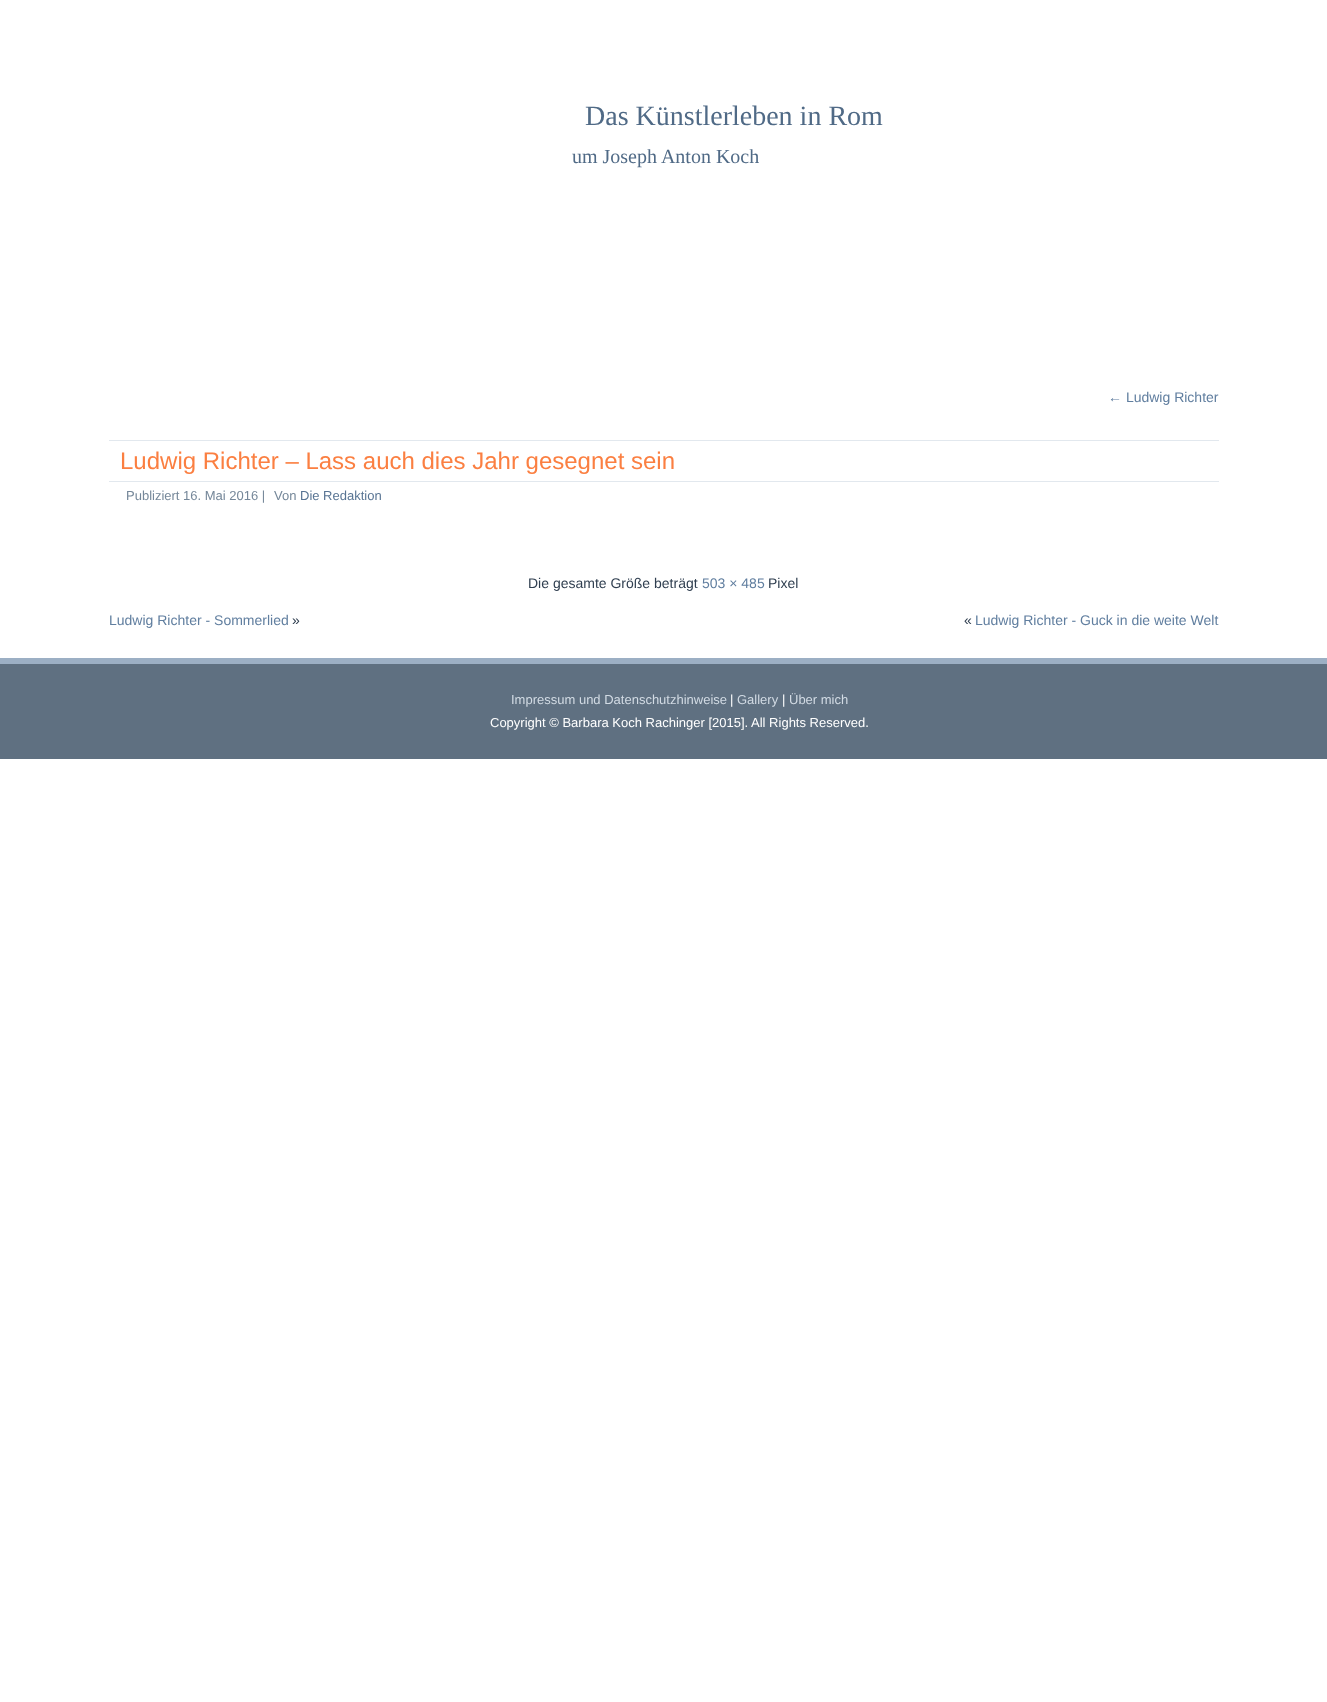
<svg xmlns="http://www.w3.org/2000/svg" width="1327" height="1702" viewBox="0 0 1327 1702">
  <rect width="100%" height="100%" fill="rgb(255,255,255)"/>
  <text x="585" y="125" font-family="Liberation Serif" font-size="28" fill="rgb(80,106,134)">Das Künstlerleben in Rom</text>
  <text x="572" y="163" font-family="Liberation Serif" font-size="20" fill="rgb(80,106,134)">um Joseph Anton Koch</text>
  <text x="1108" y="402" font-family="Liberation Sans" font-size="14" fill="rgb(96,126,159)">← Ludwig Richter</text>
  <rect x="109" y="440" width="1110" height="1" fill="rgb(226,232,238)"/>
  <rect x="109" y="481" width="1110" height="1" fill="rgb(226,232,238)"/>
  <text x="120" y="469" font-family="Liberation Sans" font-size="24" fill="rgb(251,127,65)">Ludwig Richter – Lass auch dies Jahr gesegnet sein</text>
  <g font-family="Liberation Sans" font-size="13" fill="rgb(117,135,153)">
    <text x="126" y="500">Publiziert 16. Mai 2016 |</text>
    <text x="274" y="500">Von</text>
  </g>
  <text x="300" y="500" font-family="Liberation Sans" font-size="13" fill="rgb(88,116,147)">Die Redaktion</text>
  <text x="528" y="588" font-family="Liberation Sans" font-size="14" fill="rgb(48,63,80)">Die gesamte Größe beträgt</text>
  <text x="702" y="588" font-family="Liberation Sans" font-size="14" fill="rgb(96,126,159)">503 × 485</text>
  <text x="768" y="588" font-family="Liberation Sans" font-size="14" fill="rgb(48,63,80)">Pixel</text>
  <text x="109" y="625" font-family="Liberation Sans" font-size="14" fill="rgb(96,126,159)">Ludwig Richter - Sommerlied</text>
  <g font-family="Liberation Sans" font-size="14" fill="rgb(48,63,80)">
    <text x="292" y="625">»</text>
    <text x="964" y="625">«</text>
  </g>
  <text x="975" y="625" font-family="Liberation Sans" font-size="14" fill="rgb(96,126,159)">Ludwig Richter - Guck in die weite Welt</text>
  <rect x="0" y="664" width="1327" height="95" fill="rgb(95,112,129)"/>
  <rect x="0" y="658" width="1327" height="6" fill="rgb(156,175,196)"/>
  <text x="511" y="704" font-family="Liberation Sans" font-size="13" fill="rgb(210,219,228)">Impressum und Datenschutzhinweise</text>
  <text x="730" y="704" font-family="Liberation Sans" font-size="13" fill="rgb(255,255,255)">|</text>
  <text x="737" y="704" font-family="Liberation Sans" font-size="13" fill="rgb(210,219,228)">Gallery</text>
  <text x="782" y="704" font-family="Liberation Sans" font-size="13" fill="rgb(255,255,255)">|</text>
  <text x="789" y="704" font-family="Liberation Sans" font-size="13" fill="rgb(210,219,228)">Über mich</text>
  <text x="490" y="727" font-family="Liberation Sans" font-size="13" fill="rgb(255,255,255)">Copyright © Barbara Koch Rachinger [2015]. All Rights Reserved.</text>
</svg>
